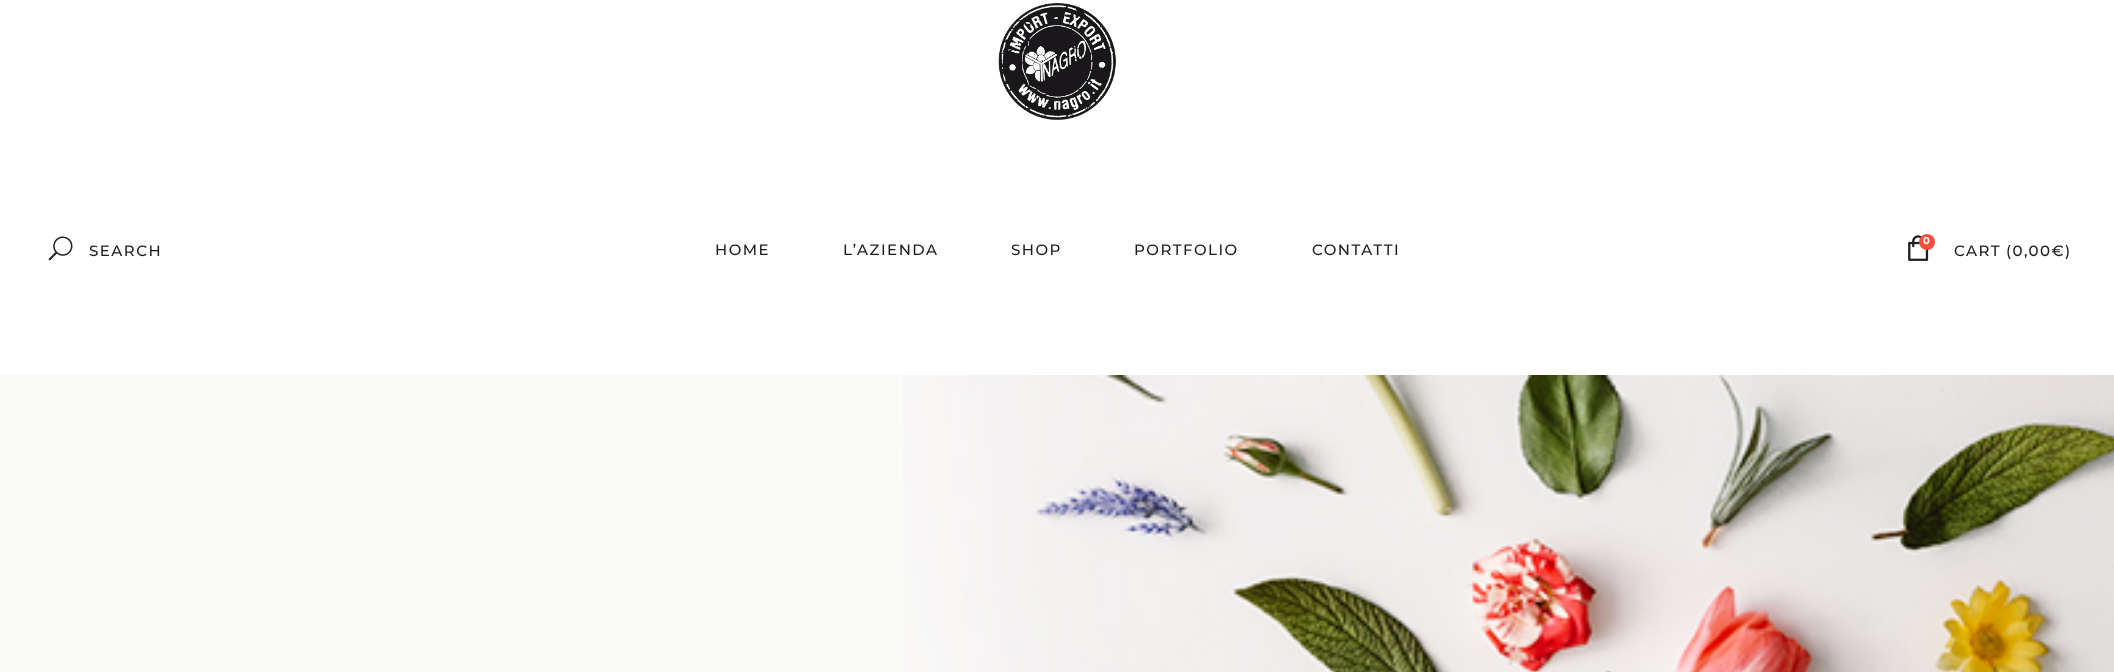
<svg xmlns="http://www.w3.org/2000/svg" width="2114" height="672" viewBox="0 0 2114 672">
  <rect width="100%" height="100%" fill="rgb(255,255,255)"/>
  <image x="998" y="3" width="118" height="117" href="pic1.png"/>
  <image x="48" y="236" width="25" height="25" href="pic2.png"/>
  <g font-family="Montserrat" font-size="15" font-weight="500" letter-spacing="1.5" fill="rgb(27,27,27)">
    <text x="89" y="256">SEARCH</text>
    <text x="715" y="255">HOME</text>
    <text x="843" y="255">L’AZIENDA</text>
    <text x="1011" y="255">SHOP</text>
    <text x="1134" y="255">PORTFOLIO</text>
    <text x="1312" y="255">CONTATTI</text>
  </g>
  <image x="1908" y="235" width="21" height="26" href="pic3.png"/>
  <circle cx="1927" cy="242" r="8" fill="rgb(243,79,63)"/>
  <text x="1923" y="244" font-family="Montserrat" font-size="10" font-weight="bold" fill="rgb(255,255,255)">0</text>
  <g font-family="Montserrat" font-size="15" font-weight="500" letter-spacing="1.5" fill="rgb(27,27,27)">
    <text x="1954" y="256">CART</text>
    <text x="2006" y="256">(0,00€)</text>
  </g>
  <rect x="0" y="375" width="903" height="297" fill="rgb(250,250,249)"/>
  <image x="903" y="375" width="1211" height="297" href="pic4.png"/>
</svg>
